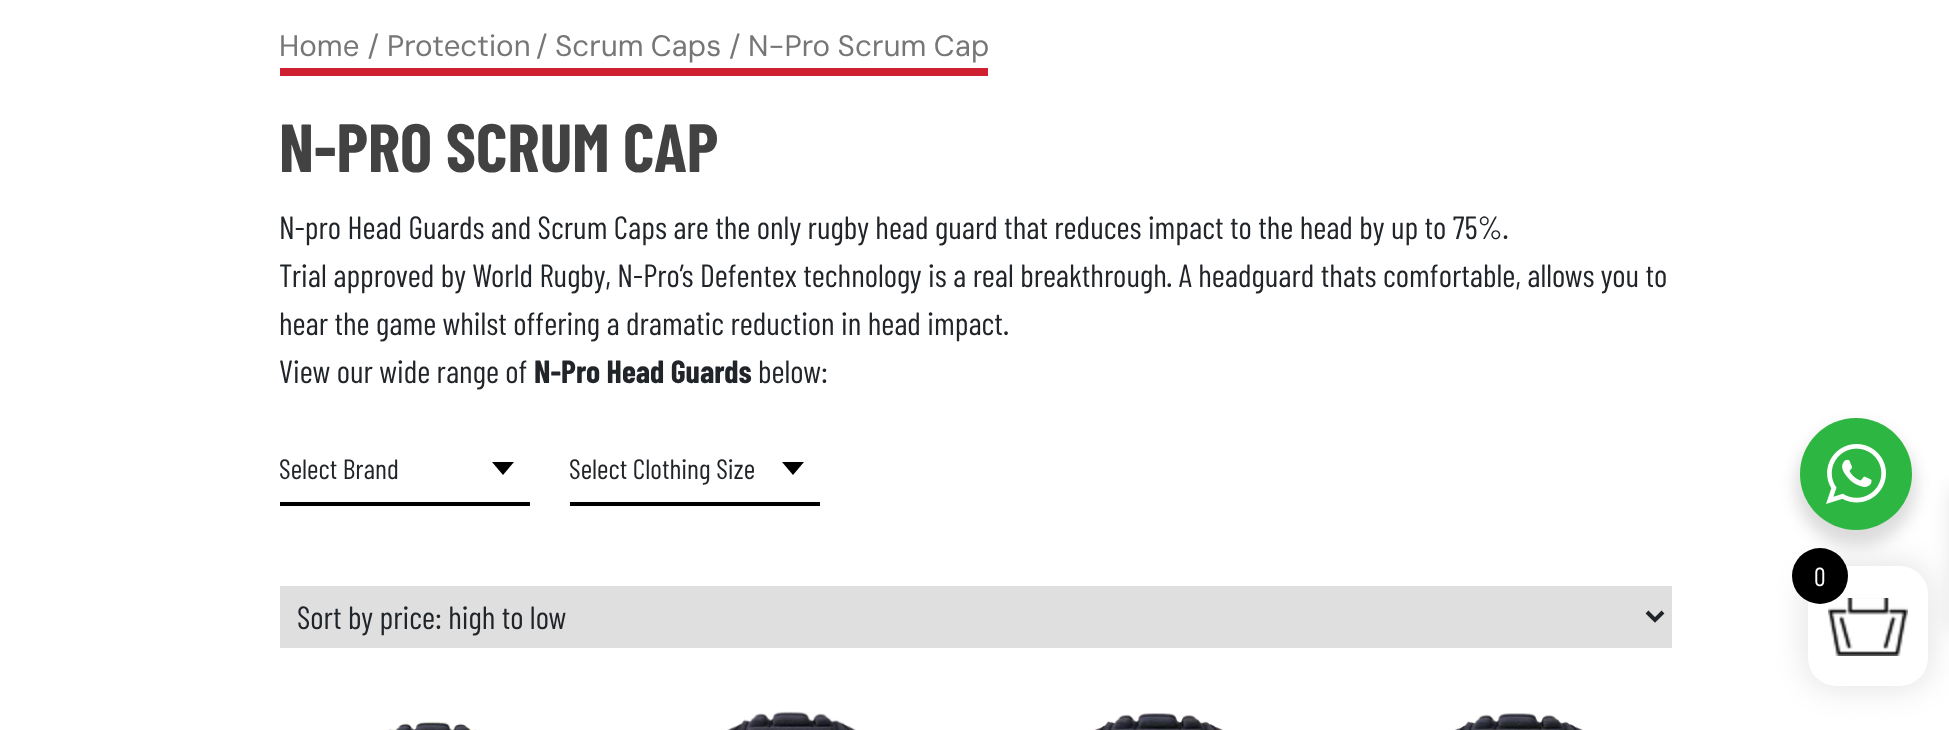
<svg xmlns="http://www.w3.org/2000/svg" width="1949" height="730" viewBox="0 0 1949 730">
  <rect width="100%" height="100%" fill="rgb(255,255,255)"/>
  <rect x="280" y="68" width="708" height="8" fill="rgb(207,32,50)"/>
  <g font-family="DM Sans" font-size="29.5" fill="rgb(118,118,118)">
    <text x="279" y="56">Home / Protection</text>
    <text x="536" y="56">/</text>
    <text x="555" y="56" word-spacing="-1">Scrum Caps</text>
    <text x="729" y="56" word-spacing="-0.5">/ N-Pro Scrum Cap</text>
  </g>
  <text x="279" y="172" font-family="Barlow Condensed" font-size="68" font-weight="bold" fill="rgb(66,66,66)">N-PRO SCRUM CAP</text>
  <g font-family="Barlow Condensed" font-size="32" fill="rgb(33,37,41)">
    <text>
      <tspan x="279" y="239">N-pro Head Guards and Scrum Caps are the only rugby head guard that reduces impact to the head by up to 75%.</tspan>
      <tspan x="279" y="287">Trial approved by World Rugby, N-Pro’s Defentex technology is a real breakthrough. A headguard thats comfortable, allows you to</tspan>
      <tspan x="279" y="335">hear the game whilst offering a dramatic reduction in head impact.</tspan>
      <tspan x="279" y="383">View our wide range of</tspan>
    </text>
  </g>
  <text x="534" y="383" font-family="Barlow Condensed" font-size="32" font-weight="bold" fill="rgb(33,37,41)">N-Pro Head Guards</text>
  <text x="758" y="383" font-family="Barlow Condensed" font-size="32" fill="rgb(33,37,41)">below:</text>
  <path d="M492 462L503 475L514 462Z" fill="rgb(0,0,0)"/>
  <rect x="280" y="502" width="250" height="4" fill="rgb(0,0,0)"/>
  <text x="279" y="479" font-family="Barlow Condensed" font-size="28" fill="rgb(33,37,41)">Select Brand</text>
  <path d="M782 462L793 475L804 462Z" fill="rgb(0,0,0)"/>
  <rect x="570" y="502" width="250" height="4" fill="rgb(0,0,0)"/>
  <text x="569" y="479" font-family="Barlow Condensed" font-size="28" fill="rgb(33,37,41)">Select Clothing Size</text>
  <rect x="280" y="586" width="1392" height="62" fill="rgb(223,223,223)"/>
  <path d="M1647 612L1655 620L1663 612" fill="none" stroke="rgb(33,37,41)" stroke-width="4"/>
  <text x="297" y="629" font-family="Barlow Condensed" font-size="32" fill="rgb(33,37,41)">Sort by price: high to low</text>
  <image x="388" y="721" width="89" height="9" href="pic1.png"/>
  <image x="727" y="711" width="129" height="19" href="pic2.png"/>
  <image x="1094" y="713" width="129" height="17" href="pic3.png"/>
  <image x="1454" y="713" width="129" height="17" href="pic4.png"/>
  <rect x="1804" y="562" width="128" height="128" rx="32" fill="rgba(0,0,0,0.1)" filter="blur(15px)"/>
  <rect x="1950" y="488" width="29" height="142" fill="rgba(0,0,0,0.1)" filter="blur(10px)"/>
  <rect x="1808" y="566" width="120" height="120" rx="28" fill="rgb(255,255,255)"/>
  <image x="1828" y="598" width="80" height="58" href="pic6.png"/>
  <circle cx="1820" cy="576" r="28" fill="rgb(0,0,0)"/>
  <rect x="1796" y="426" width="120" height="120" rx="60" fill="rgba(0,0,0,0.14)" filter="blur(8px)"/>
  <circle cx="1856" cy="474" r="56" fill="rgb(45,183,66)"/>
  <image x="1826" y="444" width="60" height="60" href="pic5.png"/>
  <text x="1814" y="586" font-family="Barlow Condensed" font-size="26" fill="rgb(255,255,255)">0</text>
</svg>
